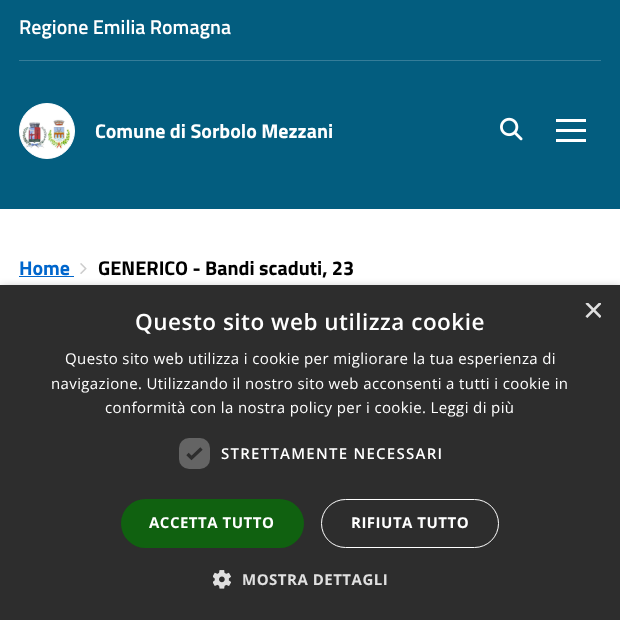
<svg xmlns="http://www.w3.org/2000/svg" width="620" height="620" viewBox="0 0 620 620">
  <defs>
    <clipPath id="clip1"><rect x="583" y="303" width="18" height="18"/></clipPath>
  </defs>
  <rect width="100%" height="100%" fill="rgb(255,255,255)"/>
  <rect x="0" y="0" width="620" height="209" fill="rgb(3,93,127)"/>
  <text x="19" y="34" font-family="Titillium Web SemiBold" font-size="20" font-weight="600" fill="rgb(255,255,255)">Regione Emilia Romagna</text>
  <rect x="19" y="60" width="582" height="1" fill="rgb(53,125,153)"/>
  <circle cx="47" cy="131" r="27.5" fill="rgb(255,255,255)" stroke="rgb(255,255,255)"/>
  <image x="22" y="119" width="49" height="30" href="pic1.png"/>
  <text x="95" y="138" font-family="Titillium Web" font-size="20" font-weight="bold" fill="rgb(255,255,255)">Comune di Sorbolo Mezzani</text>
  <image x="500" y="117" width="23" height="24" href="pic2.png"/>
  <rect x="556" y="129" width="30" height="3" fill="rgb(255,255,255)"/>
  <rect x="556" y="119" width="30" height="3" fill="rgb(255,255,255)"/>
  <rect x="556" y="139" width="30" height="3" fill="rgb(255,255,255)"/>
  <text x="19" y="275" font-family="Titillium Web" font-size="20" font-weight="bold" fill="rgb(0,102,204)">Home</text>
  <rect x="19" y="276" width="55" height="1" fill="rgb(0,102,204)"/>
  <image x="80" y="263" width="7" height="11" href="pic3.png"/>
  <text x="98" y="275" font-family="Titillium Web" font-size="20" font-weight="bold" fill="rgb(0,0,0)">GENERICO - Bandi scaduti, 23</text>
  <rect x="1" y="288" width="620" height="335" fill="rgba(0,0,0,0.35)" filter="blur(5px)"/>
  <rect x="0" y="285" width="620" height="335" fill="rgb(45,45,45)"/>
  <g clip-path="url(#clip1)">
    <text x="583" y="322" font-family="Liberation Sans" font-size="36" fill="rgb(224,224,224)">×</text>
  </g>
  <text x="135" y="330" font-family="Open Sans" font-size="22.5" font-weight="600" letter-spacing="0.5" fill="rgb(255,255,255)">Questo sito web utilizza cookie</text>
  <g font-family="Open Sans" font-size="15" letter-spacing="0.38" fill="rgb(255,255,255)">
    <text x="65" y="364">Questo sito web utilizza i cookie per migliorare la tua esperienza di</text>
    <text x="51" y="389">navigazione. Utilizzando il nostro sito web acconsenti a tutti i cookie in</text>
    <text x="105" y="413">conformità con la nostra policy per i cookie. Leggi di più</text>
  </g>
  <rect x="179" y="438" width="31" height="31" rx="10" fill="rgb(100,100,100)"/>
  <path d="M187.5 454L191.5 458L201.5 448.5" fill="none" stroke="rgb(45,45,45)" stroke-width="3.3"/>
  <text x="221" y="459" font-family="Open Sans" font-size="15" font-weight="600" letter-spacing="1.25" fill="rgb(255,255,255)">STRETTAMENTE NECESSARI</text>
  <rect x="121" y="499" width="183" height="49" rx="24.5" fill="rgb(16,97,16)"/>
  <text x="149" y="528" font-family="Open Sans" font-size="15" font-weight="bold" letter-spacing="0.5" fill="rgb(255,255,255)">ACCETTA TUTTO</text>
  <rect x="321.5" y="499.5" width="177" height="48" rx="24" fill="none" stroke="rgb(255,255,255)"/>
  <text x="351" y="528" font-family="Open Sans" font-size="15" font-weight="bold" letter-spacing="0.5" fill="rgb(255,255,255)">RIFIUTA TUTTO</text>
  <image x="213" y="570" width="18" height="19" href="pic4.png"/>
  <text x="242" y="585" font-family="Open Sans" font-size="15" font-weight="bold" letter-spacing="0.5" fill="rgb(224,224,224)">MOSTRA DETTAGLI</text>
</svg>
